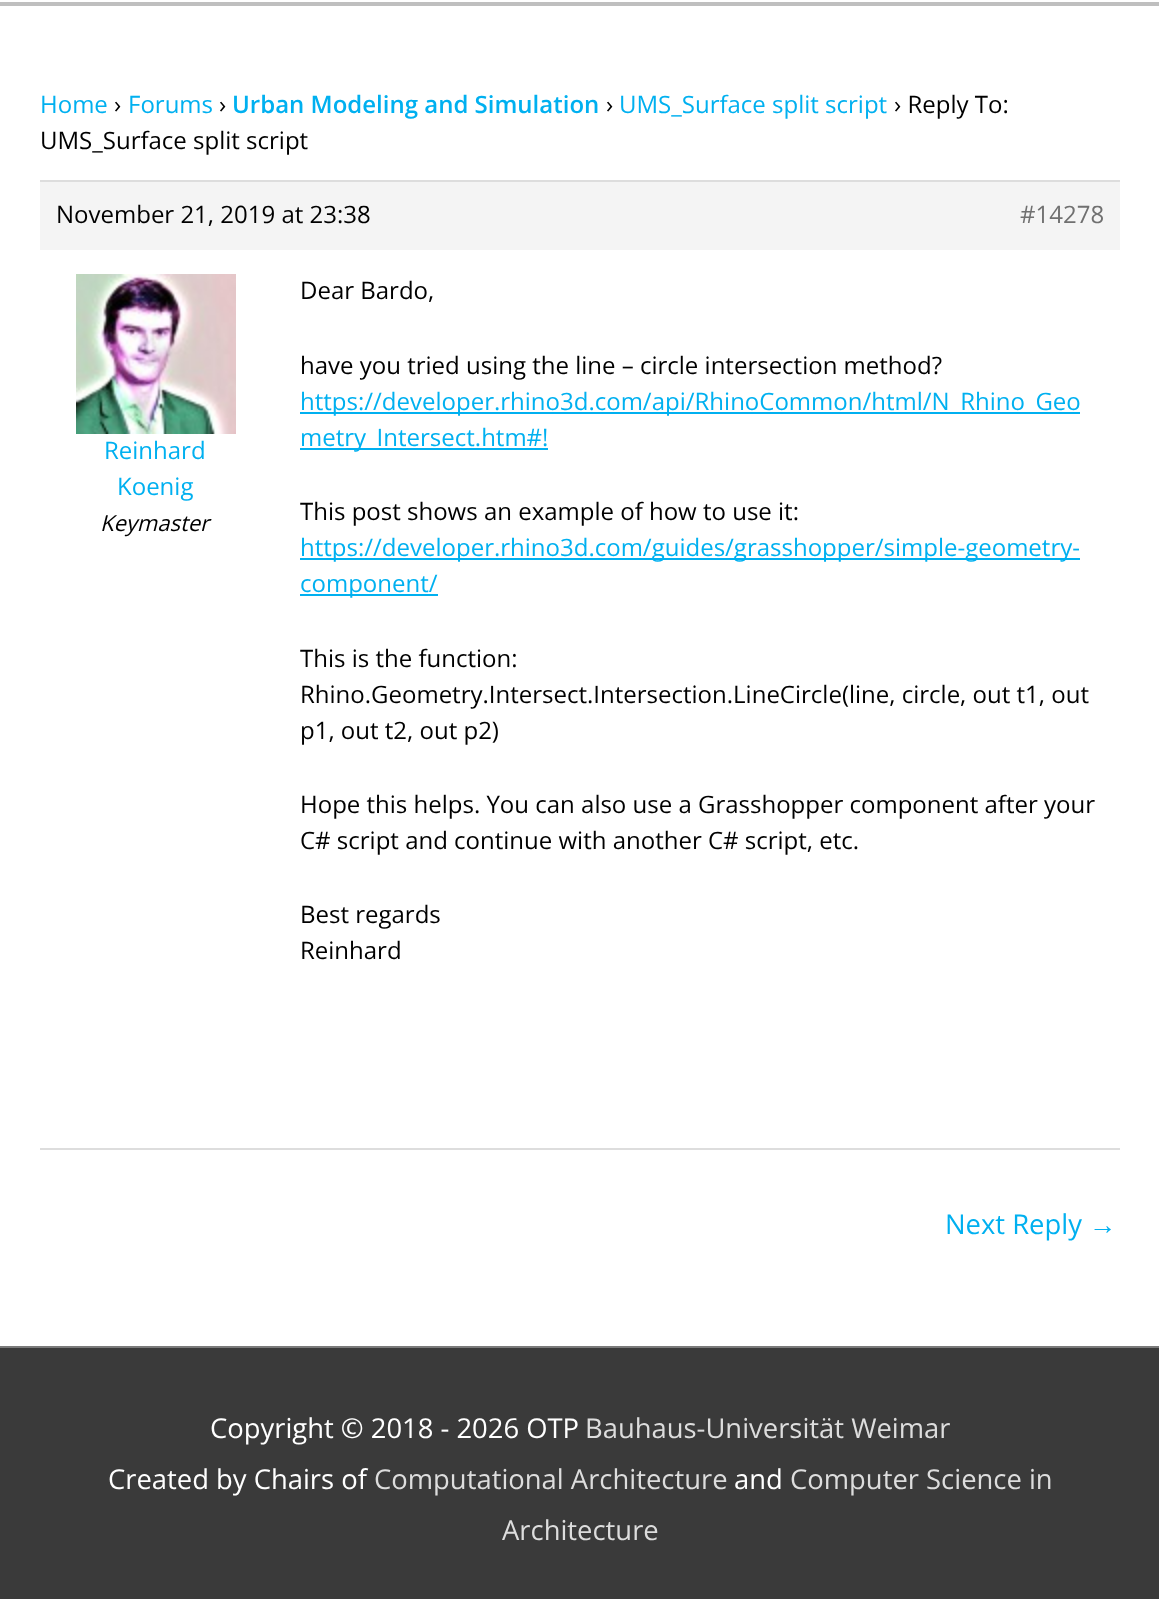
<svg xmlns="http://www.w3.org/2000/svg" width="1159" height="1599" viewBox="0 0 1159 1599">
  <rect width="100%" height="100%" fill="rgb(255,255,255)"/>
  <rect x="0" y="2" width="1159" height="4" fill="rgb(191,191,191)"/>
  <text x="40" y="113" font-family="Open Sans" font-size="24" fill="rgb(0,176,240)">Home</text>
  <text x="114" y="113" font-family="Open Sans" font-size="24" fill="rgb(0,0,0)">›</text>
  <text x="128" y="113" font-family="Open Sans" font-size="24" fill="rgb(0,176,240)">Forums</text>
  <text x="219" y="113" font-family="Open Sans" font-size="24" fill="rgb(0,0,0)">›</text>
  <text x="232" y="113" font-family="Open Sans" font-size="24" font-weight="600" fill="rgb(0,176,240)">Urban Modeling and Simulation</text>
  <text x="606" y="113" font-family="Open Sans" font-size="24" fill="rgb(0,0,0)">›</text>
  <text x="619" y="113" font-family="Open Sans" font-size="24" fill="rgb(0,176,240)">UMS_Surface split script</text>
  <g font-family="Open Sans" font-size="24" fill="rgb(0,0,0)">
    <text x="894" y="113">› Reply To:</text>
    <text x="40" y="149">UMS_Surface split script</text>
  </g>
  <rect x="40" y="182" width="1080" height="68" fill="rgb(244,244,244)"/>
  <rect x="40" y="180" width="1080" height="2" fill="rgb(221,221,221)"/>
  <text x="56" y="223" font-family="Open Sans" font-size="24" fill="rgb(0,0,0)">November 21, 2019 at 23:38</text>
  <text x="1020" y="223" font-family="Open Sans" font-size="24" fill="rgb(112,112,112)">#14278</text>
  <image x="76" y="274" width="160" height="160" href="pic1.png"/>
  <g font-family="Open Sans" font-size="24" fill="rgb(0,176,240)">
    <text x="104" y="459">Reinhard</text>
    <text x="117" y="495">Koenig</text>
  </g>
  <text x="100" y="531" font-family="Open Sans" font-size="22" font-style="italic" fill="rgb(0,0,0)">Keymaster</text>
  <g font-family="Open Sans" font-size="24" fill="rgb(0,0,0)">
    <text x="300" y="299">Dear Bardo,</text>
    <text x="300" y="374">have you tried using the line – circle intersection method?</text>
  </g>
  <rect x="300" y="412" width="780" height="2" fill="rgb(0,176,240)"/>
  <text x="300" y="410" font-family="Open Sans" font-size="24" fill="rgb(0,176,240)">https://developer.rhino3d.com/api/RhinoCommon/html/N_Rhino_Geo</text>
  <rect x="300" y="448" width="248" height="2" fill="rgb(0,176,240)"/>
  <text x="300" y="446" font-family="Open Sans" font-size="24" fill="rgb(0,176,240)">metry_Intersect.htm#!</text>
  <text x="300" y="520" font-family="Open Sans" font-size="24" fill="rgb(0,0,0)">This post shows an example of how to use it:</text>
  <rect x="300" y="558" width="780" height="2" fill="rgb(0,176,240)"/>
  <text x="300" y="556" font-family="Open Sans" font-size="24" fill="rgb(0,176,240)">https://developer.rhino3d.com/guides/grasshopper/simple-geometry-</text>
  <rect x="300" y="594" width="138" height="2" fill="rgb(0,176,240)"/>
  <text x="300" y="592" font-family="Open Sans" font-size="24" fill="rgb(0,176,240)">component/</text>
  <g font-family="Open Sans" font-size="24" fill="rgb(0,0,0)">
    <text>
      <tspan x="300" y="667">This is the function:</tspan>
      <tspan x="300" y="703">Rhino.Geometry.Intersect.Intersection.LineCircle(line, circle, out t1, out</tspan>
      <tspan x="300" y="739">p1, out t2, out p2)</tspan>
    </text>
    <text>
      <tspan x="300" y="813">Hope this helps. You can also use a Grasshopper component after your</tspan>
      <tspan x="300" y="849">C# script and continue with another C# script, etc.</tspan>
    </text>
    <text>
      <tspan x="300" y="923">Best regards</tspan>
      <tspan x="300" y="959">Reinhard</tspan>
    </text>
  </g>
  <rect x="40" y="1148" width="1080" height="2" fill="rgb(221,221,221)"/>
  <text x="945" y="1234" font-family="Open Sans" font-size="27.4" fill="rgb(0,176,240)">Next Reply</text>
  <text x="1089" y="1234" font-family="Liberation Sans" font-size="27.4" fill="rgb(0,176,240)">→</text>
  <rect x="0" y="1346" width="1159" height="2" fill="rgb(122,122,122)"/>
  <rect x="0" y="1348" width="1159" height="251" fill="rgb(58,58,58)"/>
  <text x="210" y="1438" font-family="Open Sans" font-size="27.4" fill="rgb(255,255,255)">Copyright © 2018 - 2026 OTP</text>
  <text x="585" y="1438" font-family="Open Sans" font-size="27.4" fill="rgb(221,221,221)">Bauhaus-Universität Weimar</text>
  <text x="108" y="1489" font-family="Open Sans" font-size="27.4" fill="rgb(255,255,255)">Created by Chairs of</text>
  <text x="374" y="1489" font-family="Open Sans" font-size="27.4" fill="rgb(221,221,221)">Computational Architecture</text>
  <text x="734" y="1489" font-family="Open Sans" font-size="27.4" fill="rgb(255,255,255)">and</text>
  <g font-family="Open Sans" font-size="27.4" fill="rgb(221,221,221)">
    <text x="790" y="1489">Computer Science in</text>
    <text x="502" y="1540">Architecture</text>
  </g>
</svg>
